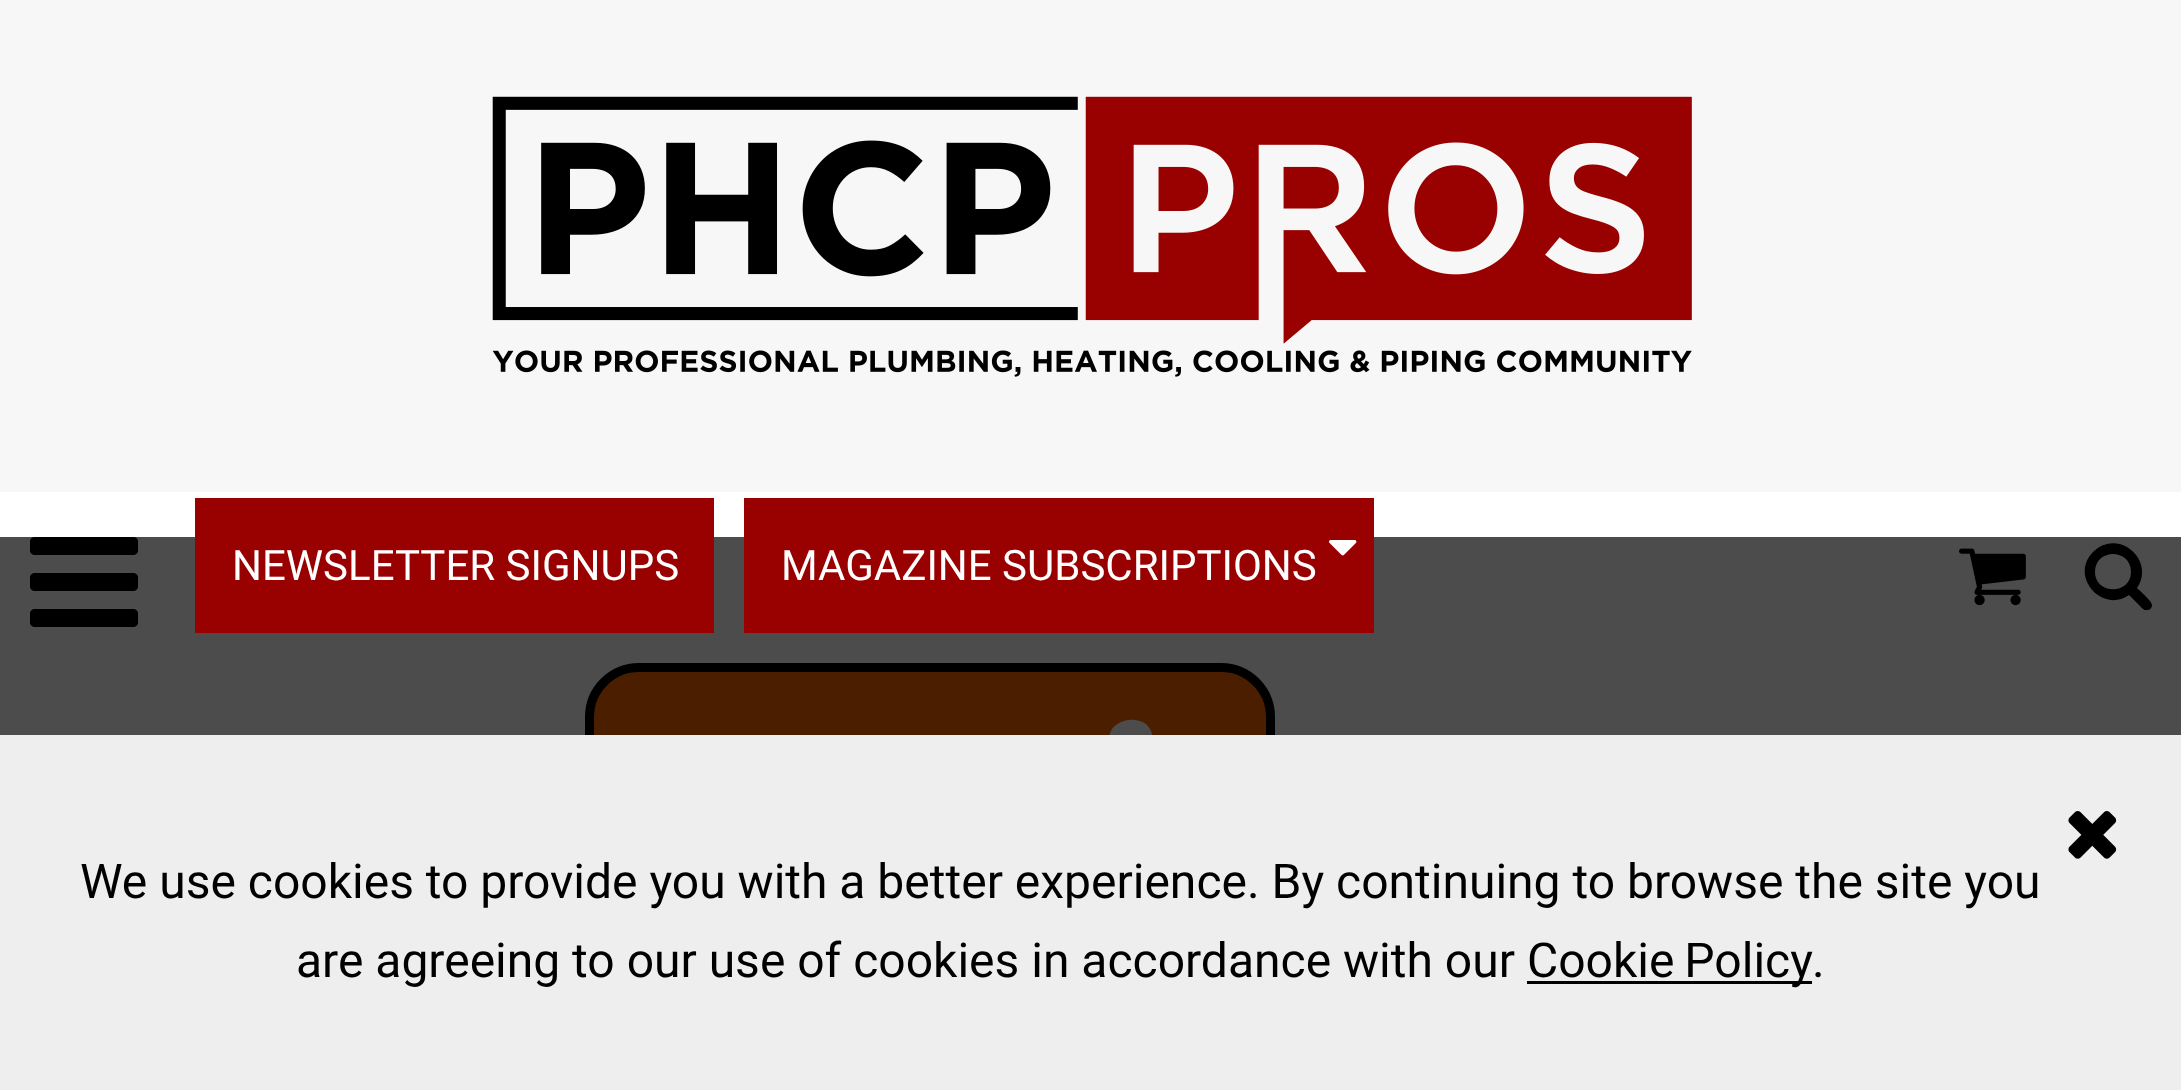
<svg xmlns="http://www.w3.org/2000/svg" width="2181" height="1090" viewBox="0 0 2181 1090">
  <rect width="100%" height="100%" fill="rgb(247,247,247)"/>
  <image x="492" y="96" width="1200" height="281" href="pic1.png"/>
  <rect x="0" y="492" width="2181" height="243" fill="rgb(255,255,255)"/>
  <image x="30" y="537" width="108" height="90" href="pic2.png"/>
  <rect x="589.5" y="667.5" width="681" height="144" rx="49.5" fill="rgb(255,103,0)" stroke="rgb(0,0,0)" stroke-width="9"/>
  <path d="M1152 735C1152 731 1149 727 1146 724C1125 710 1095 734 1118 747L1116 751C1115 753 1110 757 1116 756C1120 755 1124 753 1128 750C1137 751 1152 747 1152 735Z" fill="rgb(255,255,255)"/>
  <image x="1959" y="548" width="67" height="58" href="pic4.png"/>
  <path d="M2131 572C2131 595 2095 595 2095 572C2095 548 2131 548 2131 572ZM2152 605C2152 601 2140 591 2137 588C2156 560 2118 527 2093 552C2069 576 2102 614 2129 595L2143 609C2144 610 2145 610 2147 610C2150 610 2152 608 2152 605Z" fill="rgb(0,0,0)"/>
  <rect x="0" y="537" width="2181" height="198" fill="rgba(0,0,0,0.7)"/>
  <rect x="195" y="498" width="519" height="135" fill="rgb(153,0,0)"/>
  <text x="232" y="580" font-family="Roboto" font-size="42" fill="rgb(255,255,255)">NEWSLETTER SIGNUPS</text>
  <rect x="744" y="498" width="630" height="135" fill="rgb(153,0,0)"/>
  <text x="781" y="580" font-family="Roboto" font-size="42" fill="rgb(255,255,255)">MAGAZINE SUBSCRIPTIONS</text>
  <image x="1329" y="540" width="28" height="16" href="pic3.png"/>
  <rect x="0" y="735" width="2181" height="355" fill="rgb(238,238,238)"/>
  <image x="2068" y="811" width="49" height="48" href="pic5.png"/>
  <g font-family="Roboto" font-size="48" fill="rgb(0,0,0)">
    <text x="80" y="898">We use cookies to provide you with a better experience. By continuing to browse the site you</text>
    <text x="296" y="977">are agreeing to our use of cookies in accordance with our</text>
  </g>
  <rect x="1527" y="981" width="285" height="3" fill="rgb(0,0,0)"/>
  <g font-family="Roboto" font-size="48" fill="rgb(0,0,0)">
    <text x="1527" y="977" word-spacing="-2">Cookie Policy</text>
    <text x="1812" y="977">.</text>
  </g>
</svg>
